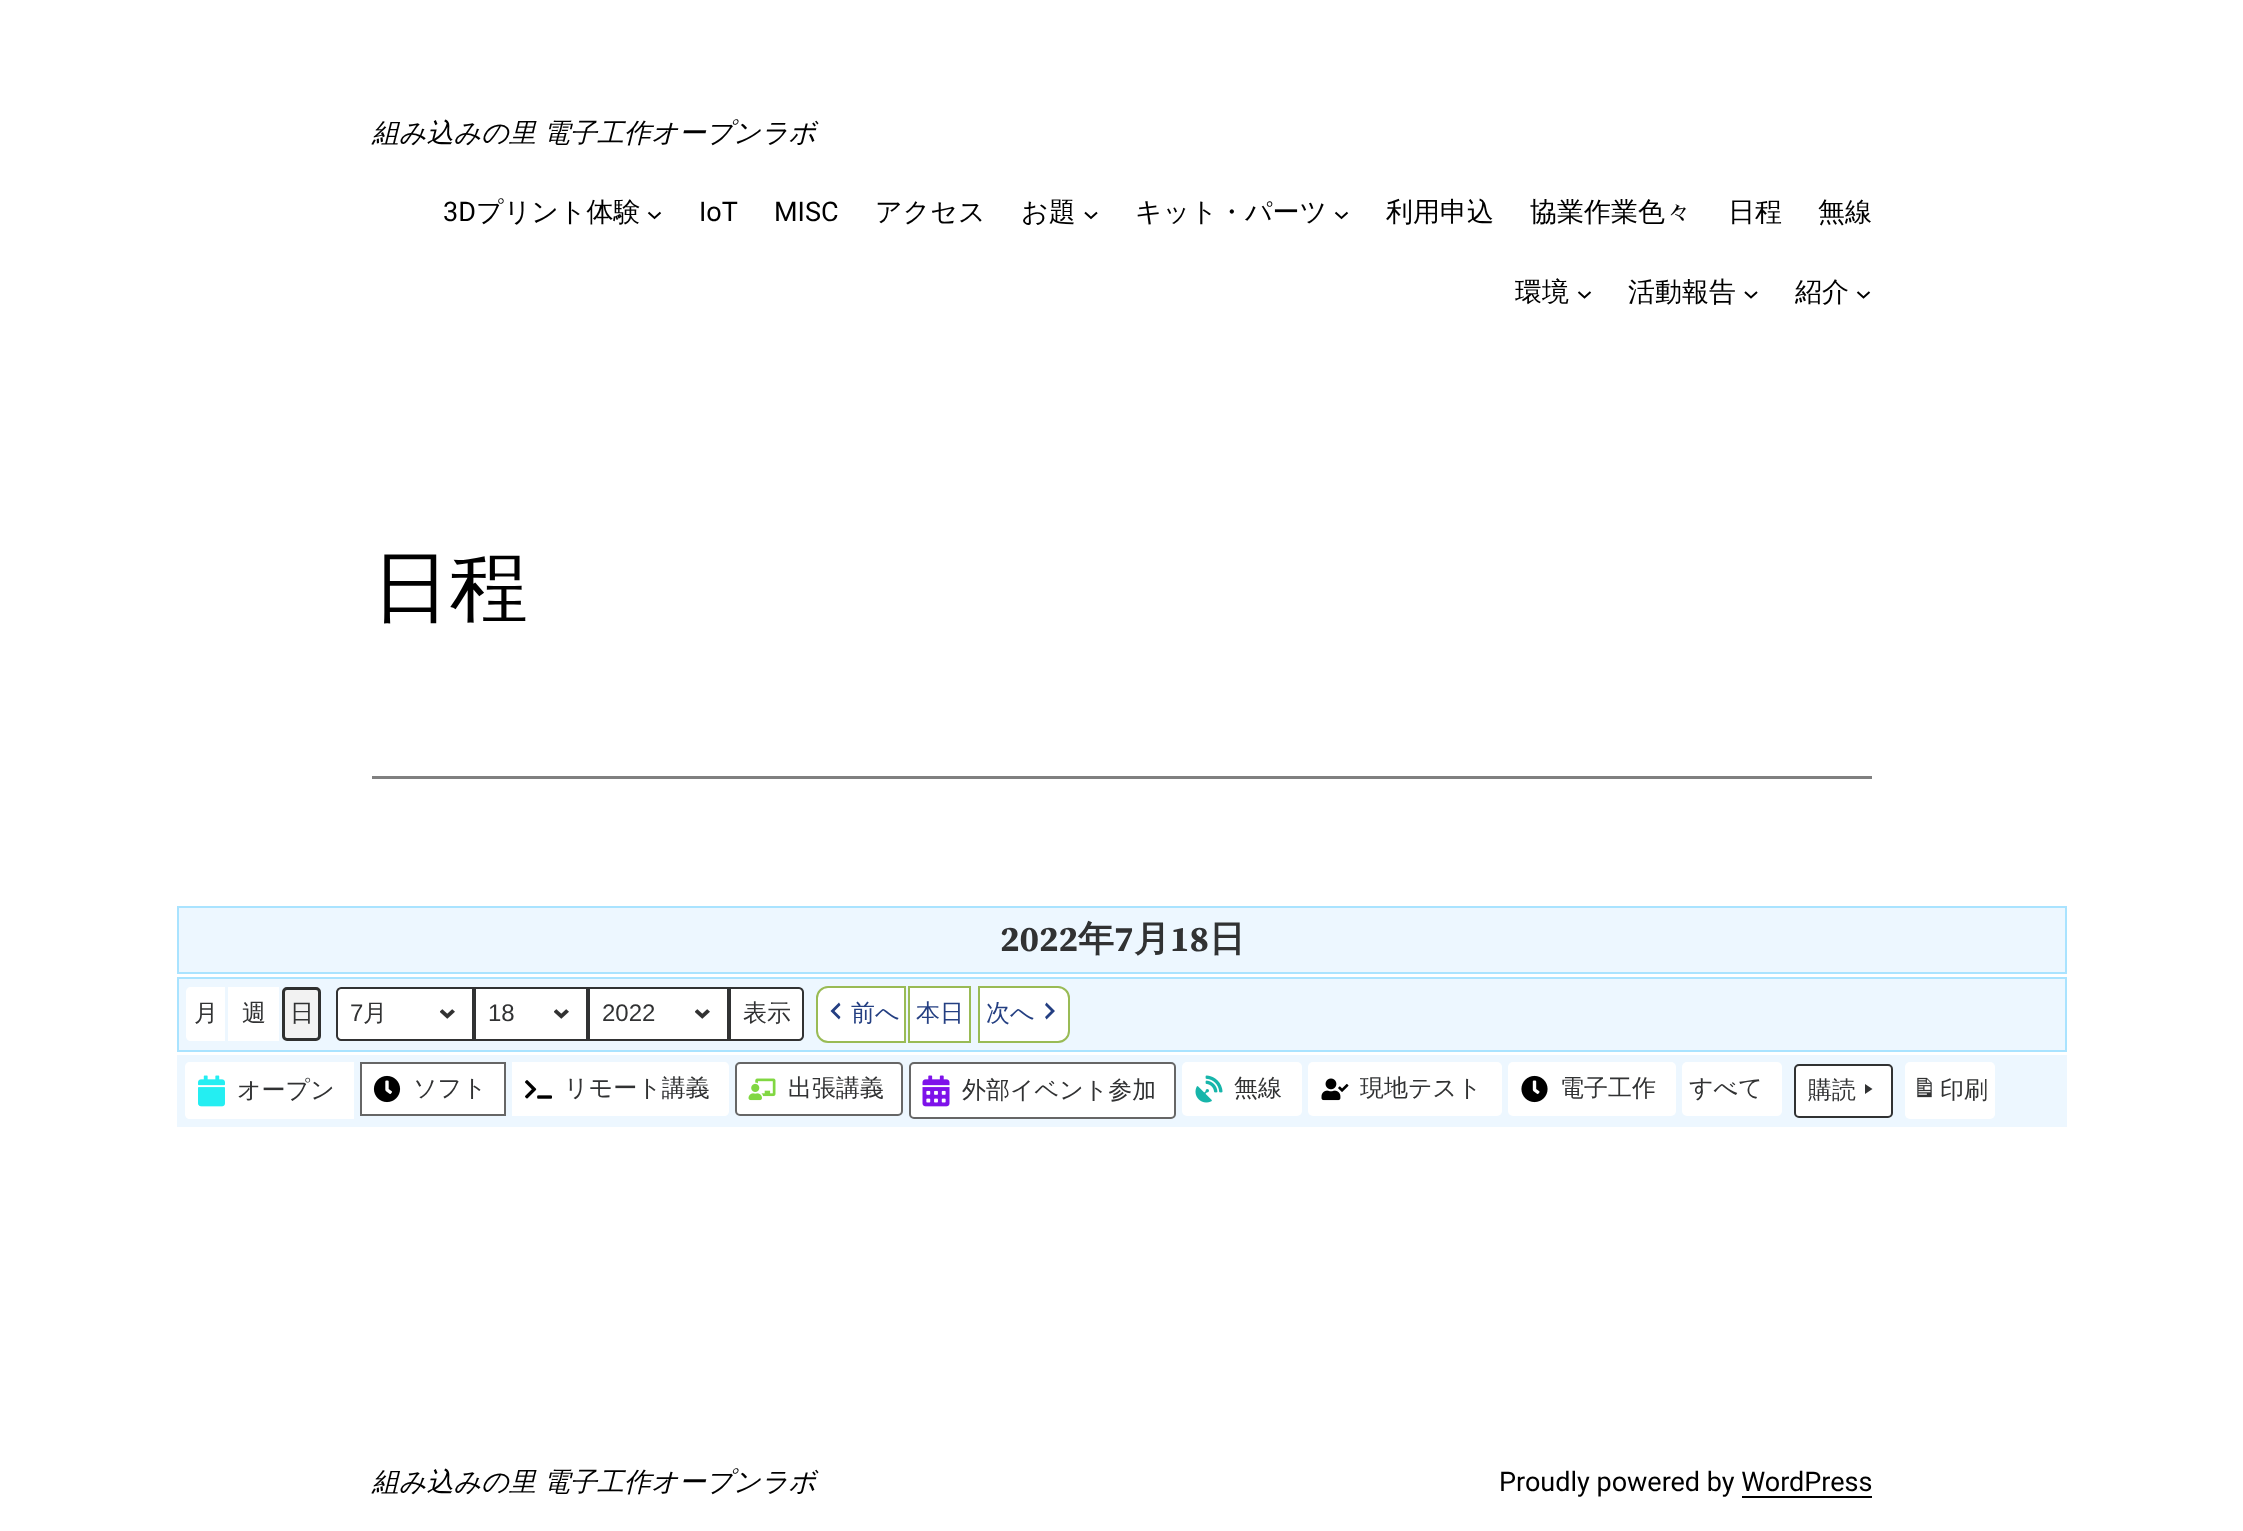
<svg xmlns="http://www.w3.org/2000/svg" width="2243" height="1531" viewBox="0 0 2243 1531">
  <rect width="100%" height="100%" fill="rgb(255,255,255)"/>
  <text x="372" y="142" word-spacing="-1" font-family="WenQuanYi Zen Hei" font-size="27" font-weight="500" font-style="italic" fill="rgb(0,0,0)">組み込みの里 電子工作オープンラボ</text>
  <text x="443" y="221" font-family="Roboto" font-size="27" fill="rgb(0,0,0)">3D</text>
  <text x="476" y="221" font-family="WenQuanYi Zen Hei" font-size="27" font-weight="500" fill="rgb(0,0,0)">プリント体験</text>
  <path d="M648.5 212.5L654.5 218L660.5 212.5" fill="none" stroke="rgb(0,0,0)" stroke-width="2"/>
  <g font-family="Roboto" font-size="27" fill="rgb(0,0,0)">
    <text x="699" y="221">IoT</text>
    <text x="774" y="221">MISC</text>
  </g>
  <g font-family="WenQuanYi Zen Hei" font-size="27" font-weight="500" fill="rgb(0,0,0)">
    <text x="875" y="221">アクセス</text>
    <text x="1021" y="221">お題</text>
  </g>
  <path d="M1085 212.5L1091 218L1097 212.5" fill="none" stroke="rgb(0,0,0)" stroke-width="2"/>
  <text x="1135" y="221" font-family="WenQuanYi Zen Hei" font-size="27" font-weight="500" fill="rgb(0,0,0)">キット・パーツ</text>
  <path d="M1335.5 212.5L1341.5 218L1347.5 212.5" fill="none" stroke="rgb(0,0,0)" stroke-width="2"/>
  <g font-family="WenQuanYi Zen Hei" font-size="27" font-weight="500" fill="rgb(0,0,0)">
    <text x="1386" y="221">利用申込</text>
    <text x="1530" y="221">協業作業色々</text>
    <text x="1728" y="221">日程</text>
    <text x="1818" y="221">無線</text>
    <text x="1515" y="301">環境</text>
  </g>
  <path d="M1578.5 292L1584.5 297.5L1590.5 292" fill="none" stroke="rgb(0,0,0)" stroke-width="2"/>
  <text x="1628" y="301" font-family="WenQuanYi Zen Hei" font-size="27" font-weight="500" fill="rgb(0,0,0)">活動報告</text>
  <path d="M1745 292L1751 297.5L1757 292" fill="none" stroke="rgb(0,0,0)" stroke-width="2"/>
  <text x="1795" y="301" font-family="WenQuanYi Zen Hei" font-size="27" font-weight="500" fill="rgb(0,0,0)">紹介</text>
  <path d="M1857.5 292L1863.5 297.5L1869.5 292" fill="none" stroke="rgb(0,0,0)" stroke-width="2"/>
  <text x="372" y="614" font-family="WenQuanYi Zen Hei" font-size="78" font-weight="500" fill="rgb(0,0,0)">日程</text>
  <rect x="372" y="776" width="1500" height="3" fill="rgb(128,128,128)"/>
  <rect x="178" y="907" width="1888" height="66" fill="rgb(237,247,255)" stroke="rgb(169,227,255)" stroke-width="2"/>
  <text x="1000" y="951" font-family="'Source Serif 4'" font-size="36" font-weight="bold" fill="rgb(49,50,51)">2022</text>
  <text x="1078" y="951" font-family="WenQuanYi Zen Hei" font-size="36" font-weight="bold" fill="rgb(49,50,51)">年</text>
  <text x="1114" y="951" font-family="'Source Serif 4'" font-size="36" font-weight="bold" fill="rgb(49,50,51)">7</text>
  <text x="1134" y="951" font-family="WenQuanYi Zen Hei" font-size="36" font-weight="bold" fill="rgb(49,50,51)">月</text>
  <text x="1170" y="951" font-family="'Source Serif 4'" font-size="36" font-weight="bold" fill="rgb(49,50,51)">18</text>
  <text x="1209" y="951" font-family="WenQuanYi Zen Hei" font-size="36" font-weight="bold" fill="rgb(49,50,51)">日</text>
  <rect x="178" y="978" width="1888" height="73" fill="rgb(237,247,255)" stroke="rgb(169,227,255)" stroke-width="2"/>
  <path d="M191 987H225V1041H191C188 1041 186 1039 186 1036V992C186 989 188 987 191 987Z" fill="rgb(255,255,255)"/>
  <text x="194" y="1021" font-family="WenQuanYi Zen Hei" font-size="24" font-weight="500" fill="rgb(49,50,51)">月</text>
  <rect x="228" y="987" width="51" height="54" fill="rgb(255,255,255)"/>
  <text x="242" y="1021" font-family="WenQuanYi Zen Hei" font-size="24" font-weight="500" fill="rgb(49,50,51)">週</text>
  <rect x="282" y="987" width="39" height="54" rx="5" fill="rgb(242,242,242)"/>
  <rect x="283.5" y="988.5" width="36" height="51" rx="3.5" fill="none" stroke="rgb(47,48,48)" stroke-width="3"/>
  <text x="290" y="1021" font-family="WenQuanYi Zen Hei" font-size="24" font-weight="500" fill="rgb(49,50,51)">日</text>
  <path d="M341 987H474V1041H341C338 1041 336 1039 336 1036V992C336 989 338 987 341 987Z" fill="rgb(255,255,255)"/>
  <image x="440" y="1009" width="15" height="10" href="pic1.png"/>
  <path d="M341 988H473V1040H341C339 1040 337 1038 337 1036V992C337 990 339 988 341 988Z" fill="none" stroke="rgb(49,50,51)" stroke-width="2"/>
  <text x="350" y="1021" font-family="Liberation Sans" font-size="24" fill="rgb(49,50,51)">7</text>
  <text x="363" y="1021" font-family="WenQuanYi Zen Hei" font-size="24" font-weight="500" fill="rgb(49,50,51)">月</text>
  <rect x="476" y="989" width="110" height="50" fill="rgb(255,255,255)"/>
  <image x="554" y="1009" width="15" height="10" href="pic1.png"/>
  <rect x="475" y="988" width="112" height="52" fill="none" stroke="rgb(49,50,51)" stroke-width="2"/>
  <text x="488" y="1021" font-family="Liberation Sans" font-size="24" fill="rgb(49,50,51)">18</text>
  <rect x="590" y="989" width="137" height="50" fill="rgb(255,255,255)"/>
  <image x="695" y="1009" width="15" height="10" href="pic1.png"/>
  <rect x="589" y="988" width="139" height="52" fill="none" stroke="rgb(49,50,51)" stroke-width="2"/>
  <text x="602" y="1021" font-family="Liberation Sans" font-size="24" fill="rgb(49,50,51)">2022</text>
  <path d="M730 988H799C801 988 803 990 803 992V1036C803 1038 801 1040 799 1040H730Z" fill="rgb(255,255,255)" stroke="rgb(49,50,51)" stroke-width="2"/>
  <text x="743" y="1021" font-family="WenQuanYi Zen Hei" font-size="24" font-weight="500" fill="rgb(49,50,51)">表示</text>
  <path d="M828 987H905V1042H828C822 1042 817 1037 817 1031V998C817 992 822 987 828 987Z" fill="rgb(255,255,255)" stroke="rgb(153,187,85)" stroke-width="2"/>
  <path d="M840.5 1005L834.5 1011L840.5 1017L839 1019.5L830.5 1011L839 1002.5Z" fill="rgb(36,63,130)"/>
  <text x="851" y="1021" font-family="WenQuanYi Zen Hei" font-size="24" font-weight="500" fill="rgb(36,63,130)">前へ</text>
  <rect x="909" y="987" width="61" height="55" fill="rgb(255,255,255)" stroke="rgb(153,187,85)" stroke-width="2"/>
  <text x="916" y="1021" font-family="WenQuanYi Zen Hei" font-size="24" font-weight="500" fill="rgb(36,63,130)">本日</text>
  <path d="M979 987H1058C1064 987 1069 992 1069 998V1031C1069 1037 1064 1042 1058 1042H979Z" fill="rgb(255,255,255)" stroke="rgb(153,187,85)" stroke-width="2"/>
  <text x="986" y="1021" font-family="WenQuanYi Zen Hei" font-size="24" font-weight="500" fill="rgb(36,63,130)">次へ</text>
  <path d="M1045 1017L1051 1011L1045 1005L1046.5 1002.5L1055 1011L1046.5 1019.5Z" fill="rgb(36,63,130)"/>
  <rect x="177" y="1055" width="1890" height="72" fill="rgb(237,247,255)"/>
  <path d="M190 1062H354V1119H190C187 1119 185 1117 185 1114V1067C185 1064 187 1062 190 1062Z" fill="rgb(255,255,255)"/>
  <image x="198" y="1075" width="27" height="32" href="pic2.png"/>
  <text x="237" y="1098" font-family="WenQuanYi Zen Hei" font-size="24" font-weight="500" fill="rgb(49,50,51)">オープン</text>
  <rect x="361" y="1063" width="144" height="52" fill="rgb(255,255,255)" stroke="rgb(102,102,102)" stroke-width="2"/>
  <image x="373" y="1075" width="28" height="28" href="pic3.png"/>
  <text x="413" y="1096" font-family="WenQuanYi Zen Hei" font-size="24" font-weight="500" fill="rgb(49,50,51)">ソフト</text>
  <path d="M512 1062H724C727 1062 729 1064 729 1067V1111C729 1114 727 1116 724 1116H512Z" fill="rgb(255,255,255)"/>
  <image x="525" y="1080" width="27" height="19" href="pic4.png"/>
  <text x="564" y="1096" font-family="WenQuanYi Zen Hei" font-size="24" font-weight="500" fill="rgb(49,50,51)">リモート講義</text>
  <rect x="736" y="1063" width="166" height="52" rx="4" fill="rgb(255,255,255)" stroke="rgb(102,102,102)" stroke-width="2"/>
  <image x="748" y="1078" width="28" height="23" href="pic5.png"/>
  <text x="788" y="1096" font-family="WenQuanYi Zen Hei" font-size="24" font-weight="500" fill="rgb(49,50,51)">出張講義</text>
  <rect x="910" y="1063" width="265" height="55" rx="4" fill="rgb(255,255,255)" stroke="rgb(102,102,102)" stroke-width="2"/>
  <image x="922" y="1075" width="28" height="32" href="pic6.png"/>
  <text x="962" y="1098" font-family="WenQuanYi Zen Hei" font-size="24" font-weight="500" fill="rgb(49,50,51)">外部イベント参加</text>
  <rect x="1182" y="1062" width="120" height="54" rx="5" fill="rgb(255,255,255)"/>
  <image x="1195" y="1075" width="28" height="28" href="pic7.png"/>
  <text x="1234" y="1096" font-family="WenQuanYi Zen Hei" font-size="24" font-weight="500" fill="rgb(49,50,51)">無線</text>
  <rect x="1308" y="1062" width="194" height="54" rx="5" fill="rgb(255,255,255)"/>
  <image x="1321" y="1078" width="28" height="23" href="pic8.png"/>
  <text x="1360" y="1096" font-family="WenQuanYi Zen Hei" font-size="24" font-weight="500" fill="rgb(49,50,51)">現地テスト</text>
  <rect x="1508" y="1062" width="168" height="54" rx="5" fill="rgb(255,255,255)"/>
  <image x="1521" y="1075" width="27" height="28" href="pic9.png"/>
  <text x="1560" y="1096" font-family="WenQuanYi Zen Hei" font-size="24" font-weight="500" fill="rgb(49,50,51)">電子工作</text>
  <rect x="1682" y="1062" width="100" height="54" rx="5" fill="rgb(255,255,255)"/>
  <text x="1689" y="1096" font-family="WenQuanYi Zen Hei" font-size="24" font-weight="500" fill="rgb(49,50,51)">すべて</text>
  <rect x="1795" y="1065" width="97" height="52" rx="4" fill="rgb(255,255,255)" stroke="rgb(49,50,51)" stroke-width="2"/>
  <text x="1808" y="1098" font-family="WenQuanYi Zen Hei" font-size="24" font-weight="500" fill="rgb(49,50,51)">購読</text>
  <path d="M1865 1084L1872.5 1089L1865 1094Z" fill="rgb(49,50,51)"/>
  <rect x="1905" y="1062" width="90" height="57" rx="5" fill="rgb(255,255,255)"/>
  <image x="1917" y="1077" width="15" height="21" href="pic10.png"/>
  <text x="1940" y="1098" font-family="WenQuanYi Zen Hei" font-size="24" font-weight="500" fill="rgb(49,50,51)">印刷</text>
  <text x="372" y="1491" word-spacing="-1" font-family="WenQuanYi Zen Hei" font-size="27" font-weight="500" font-style="italic" fill="rgb(0,0,0)">組み込みの里 電子工作オープンラボ</text>
  <text x="1499" y="1491" font-family="Roboto" font-size="27" fill="rgb(0,0,0)">Proudly powered by WordPress</text>
  <rect x="1742" y="1496" width="130" height="2" fill="rgb(0,0,0)"/>
</svg>
